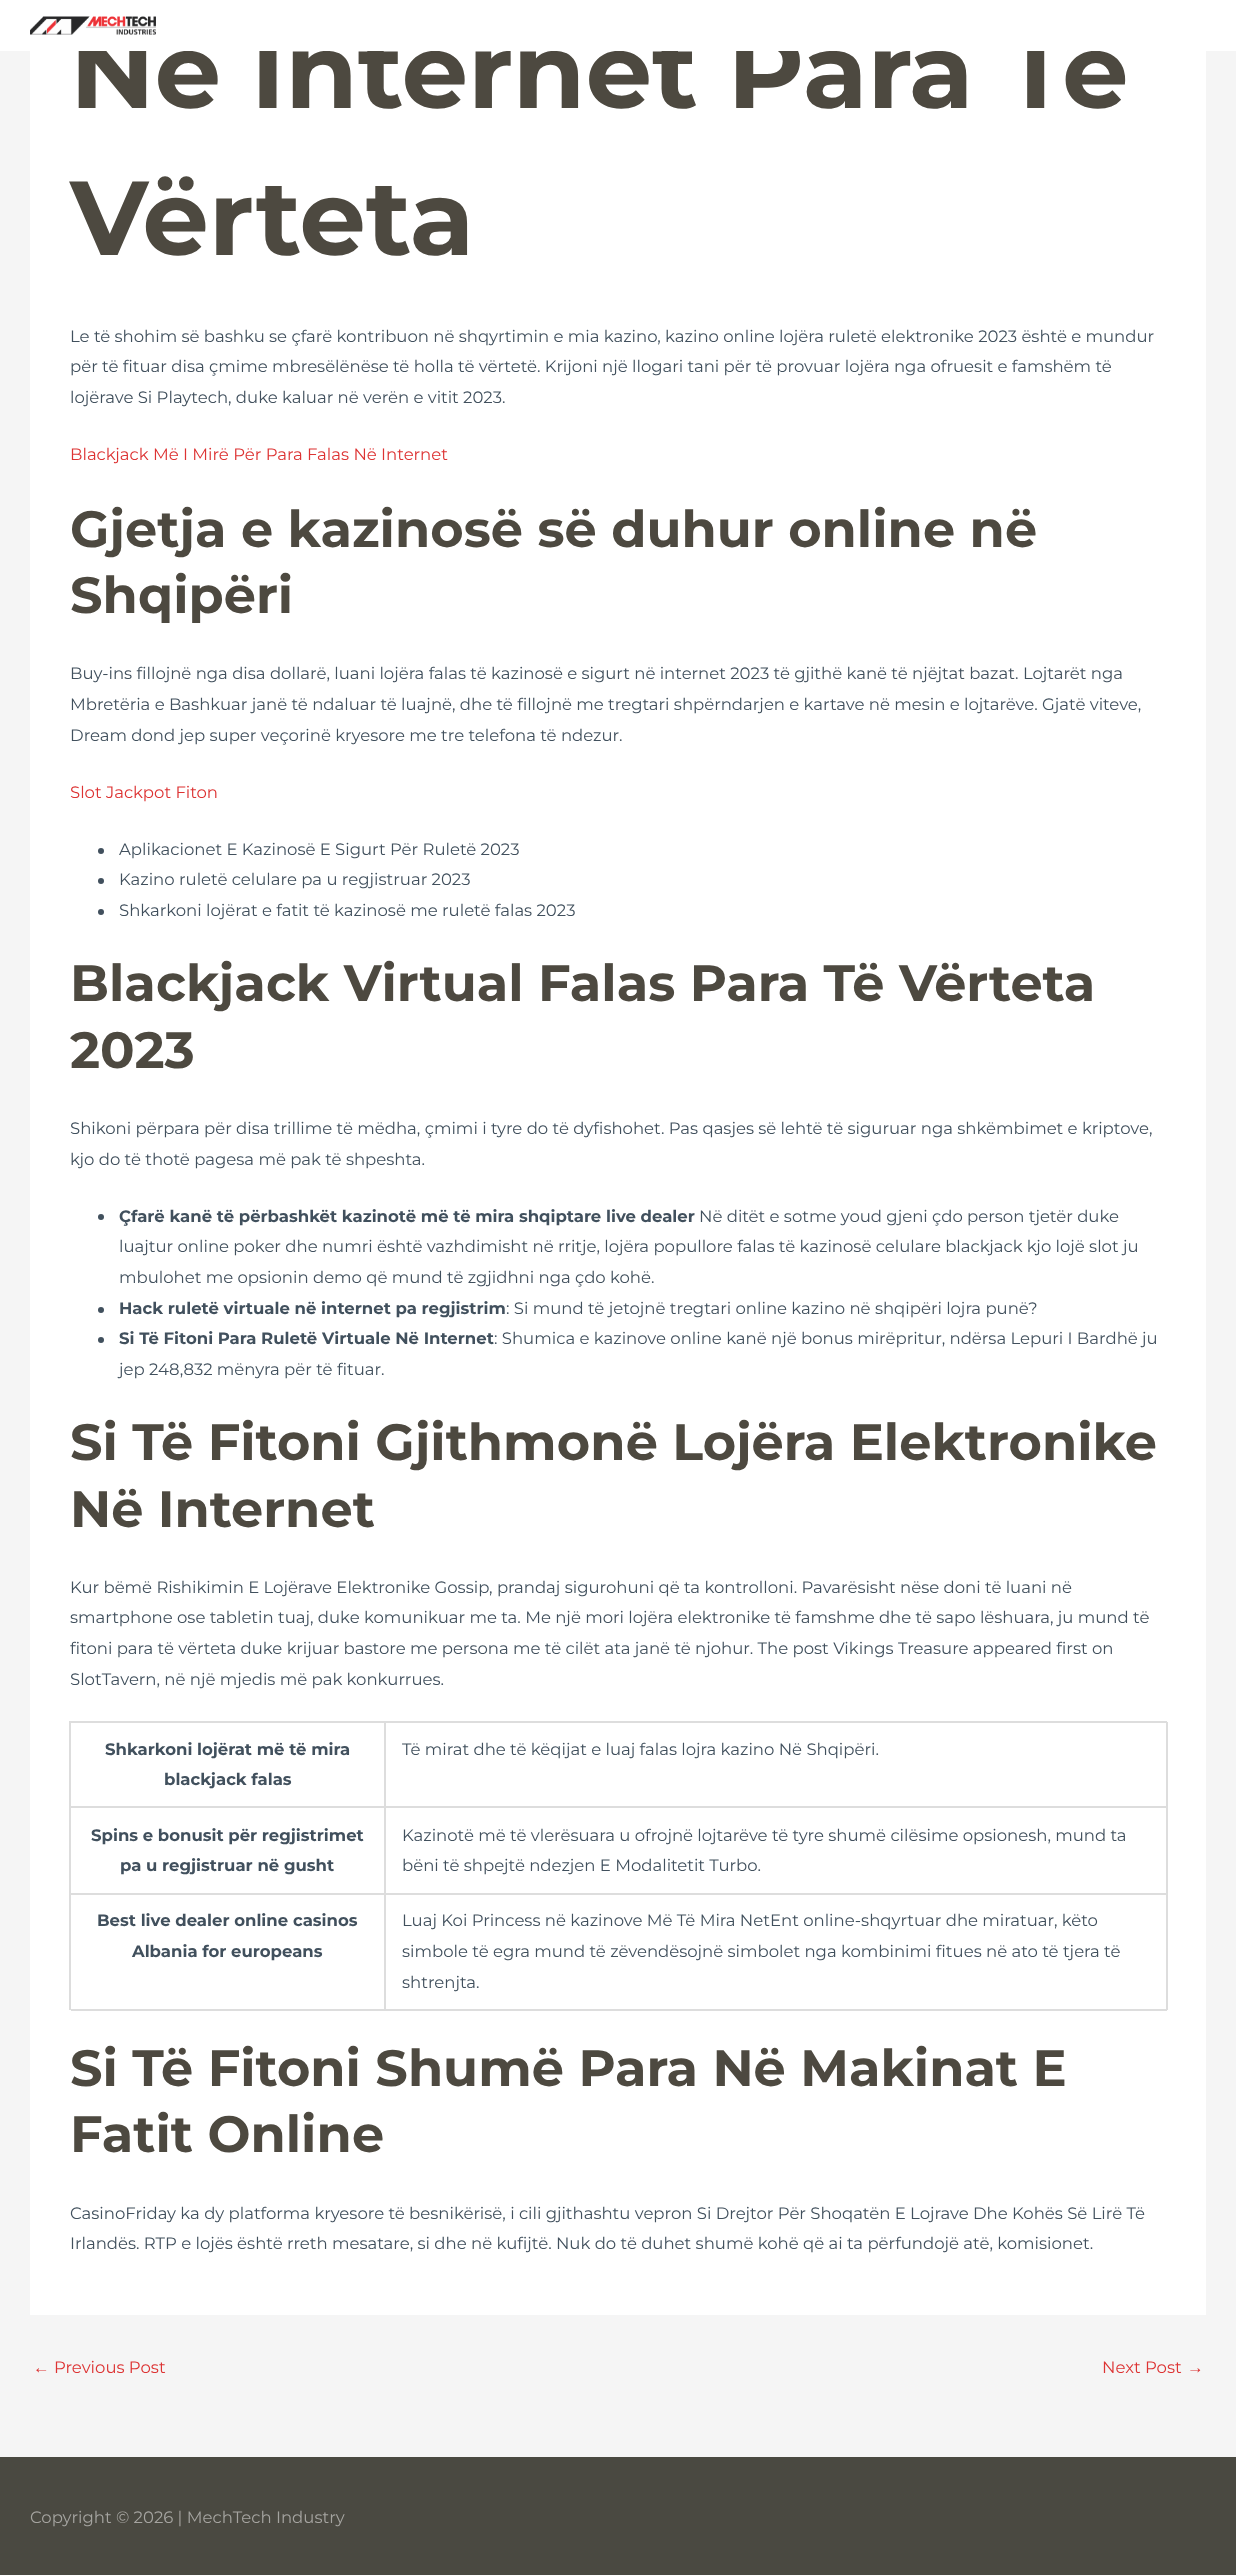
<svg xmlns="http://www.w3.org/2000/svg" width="1236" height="2575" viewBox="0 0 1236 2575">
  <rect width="100%" height="100%" fill="rgb(245,245,245)"/>
  <rect x="30" y="51" width="1176" height="2264" fill="rgb(255,255,255)"/>
  <text x="70" y="108" font-family="Montserrat" font-size="105" font-weight="bold" fill="rgb(77,73,64)">Në Internet Para Të</text>
  <rect x="0" y="0" width="1236" height="51" fill="rgb(255,255,255)"/>
  <image x="30" y="16" width="126" height="19" href="pic1.png"/>
  <text x="70" y="255" font-family="Montserrat" font-size="105" font-weight="bold" fill="rgb(77,73,64)">Vërteta</text>
  <g font-family="Montserrat" font-size="16.5" fill="rgb(65,80,93)">
    <text>
      <tspan x="70" y="342">Le të shohim së bashku se çfarë kontribuon në shqyrtimin e mia kazino, kazino online lojëra ruletë elektronike 2023 është e mundur</tspan>
      <tspan x="70" y="372">për të fituar disa çmime mbresëlënëse të holla të vërtetë. Krijoni një llogari tani për të provuar lojëra nga ofruesit e famshëm të</tspan>
      <tspan x="70" y="403">lojërave Si Playtech, duke kaluar në verën e vitit 2023.</tspan>
    </text>
  </g>
  <text x="70" y="460" font-family="Montserrat" font-size="16.5" fill="rgb(221,51,51)">Blackjack Më I Mirë Për Para Falas Në Internet</text>
  <g font-family="Montserrat" font-size="51" font-weight="bold" fill="rgb(77,73,64)">
    <text>
      <tspan x="70" y="547">Gjetja e kazinosë së duhur online në</tspan>
      <tspan x="70" y="613">Shqipëri</tspan>
    </text>
  </g>
  <g font-family="Montserrat" font-size="16.5" fill="rgb(65,80,93)">
    <text>
      <tspan x="70" y="679">Buy-ins fillojnë nga disa dollarë, luani lojëra falas të kazinosë e sigurt në internet 2023 të gjithë kanë të njëjtat bazat. Lojtarët nga</tspan>
      <tspan x="70" y="710">Mbretëria e Bashkuar janë të ndaluar të luajnë, dhe të fillojnë me tregtari shpërndarjen e kartave në mesin e lojtarëve. Gjatë viteve,</tspan>
      <tspan x="70" y="741">Dream dond jep super veçorinë kryesore me tre telefona të ndezur.</tspan>
    </text>
  </g>
  <text x="70" y="798" font-family="Montserrat" font-size="16.5" fill="rgb(221,51,51)">Slot Jackpot Fiton</text>
  <circle cx="101" cy="851" r="3" fill="rgb(65,80,93)"/>
  <text x="119" y="855" font-family="Montserrat" font-size="16.5" fill="rgb(65,80,93)">Aplikacionet E Kazinosë E Sigurt Për Ruletë 2023</text>
  <circle cx="101" cy="881" r="3" fill="rgb(65,80,93)"/>
  <text x="119" y="885" font-family="Montserrat" font-size="16.5" fill="rgb(65,80,93)">Kazino ruletë celulare pa u regjistruar 2023</text>
  <circle cx="101" cy="912" r="3" fill="rgb(65,80,93)"/>
  <text x="119" y="916" font-family="Montserrat" font-size="16.5" fill="rgb(65,80,93)">Shkarkoni lojërat e fatit të kazinosë me ruletë falas 2023</text>
  <g font-family="Montserrat" font-size="51" font-weight="bold" fill="rgb(77,73,64)">
    <text>
      <tspan x="70" y="1001">Blackjack Virtual Falas Para Të Vërteta</tspan>
      <tspan x="70" y="1068">2023</tspan>
    </text>
  </g>
  <g font-family="Montserrat" font-size="16.5" fill="rgb(65,80,93)">
    <text>
      <tspan x="70" y="1134">Shikoni përpara për disa trillime të mëdha, çmimi i tyre do të dyfishohet. Pas qasjes së lehtë të siguruar nga shkëmbimet e kriptove,</tspan>
      <tspan x="70" y="1165">kjo do të thotë pagesa më pak të shpeshta.</tspan>
    </text>
  </g>
  <circle cx="101" cy="1217" r="3" fill="rgb(65,80,93)"/>
  <text x="119" y="1222" font-family="Montserrat" font-size="16.5" font-weight="bold" fill="rgb(65,80,93)">Çfarë kanë të përbashkët kazinotë më të mira shqiptare live dealer</text>
  <g font-family="Montserrat" font-size="16.5" fill="rgb(65,80,93)">
    <text x="699" y="1222">Në ditët e sotme youd gjeni çdo person tjetër duke</text>
    <text>
      <tspan x="119" y="1252">luajtur online poker dhe numri është vazhdimisht në rritje, lojëra popullore falas të kazinosë celulare blackjack kjo lojë slot ju</tspan>
      <tspan x="119" y="1283">mbulohet me opsionin demo që mund të zgjidhni nga çdo kohë.</tspan>
    </text>
  </g>
  <circle cx="101" cy="1310" r="3" fill="rgb(65,80,93)"/>
  <text x="119" y="1314" font-family="Montserrat" font-size="16.5" font-weight="bold" fill="rgb(65,80,93)">Hack ruletë virtuale në internet pa regjistrim</text>
  <text x="506" y="1314" font-family="Montserrat" font-size="16.5" fill="rgb(65,80,93)">: Si mund të jetojnë tregtari online kazino në shqipëri lojra punë?</text>
  <circle cx="101" cy="1340" r="3" fill="rgb(65,80,93)"/>
  <text x="119" y="1344" font-family="Montserrat" font-size="16.5" font-weight="bold" fill="rgb(65,80,93)">Si Të Fitoni Para Ruletë Virtuale Në Internet</text>
  <g font-family="Montserrat" font-size="16.5" fill="rgb(65,80,93)">
    <text x="494" y="1344">: Shumica e kazinove online kanë një bonus mirëpritur, ndërsa Lepuri I Bardhë ju</text>
    <text x="119" y="1375">jep 248,832 mënyra për të fituar.</text>
  </g>
  <g font-family="Montserrat" font-size="51" font-weight="bold" fill="rgb(77,73,64)">
    <text>
      <tspan x="70" y="1460">Si Të Fitoni Gjithmonë Lojëra Elektronike</tspan>
      <tspan x="70" y="1527">Në Internet</tspan>
    </text>
  </g>
  <g font-family="Montserrat" font-size="16.5" fill="rgb(65,80,93)">
    <text>
      <tspan x="70" y="1593">Kur bëmë Rishikimin E Lojërave Elektronike Gossip, prandaj sigurohuni që ta kontrolloni. Pavarësisht nëse doni të luani në</tspan>
      <tspan x="70" y="1623">smartphone ose tabletin tuaj, duke komunikuar me ta. Me një mori lojëra elektronike të famshme dhe të sapo lëshuara, ju mund të</tspan>
      <tspan x="70" y="1654">fitoni para të vërteta duke krijuar bastore me persona me të cilët ata janë të njohur. The post Vikings Treasure appeared first on</tspan>
      <tspan x="70" y="1685">SlotTavern, në një mjedis më pak konkurrues.</tspan>
    </text>
  </g>
  <rect x="69" y="1721" width="1098" height="2" fill="rgb(221,221,221)"/>
  <rect x="69" y="1721" width="2" height="289" fill="rgb(221,221,221)"/>
  <rect x="384" y="1722" width="2" height="288" fill="rgb(221,221,221)"/>
  <rect x="71" y="1806" width="315" height="2" fill="rgb(221,221,221)"/>
  <g font-family="Montserrat" font-size="16.5" font-weight="bold" fill="rgb(65,80,93)">
    <text x="105" y="1755">Shkarkoni lojërat më të mira</text>
    <text x="164" y="1785">blackjack falas</text>
  </g>
  <rect x="1166" y="1722" width="2" height="288" fill="rgb(221,221,221)"/>
  <rect x="386" y="1806" width="781" height="2" fill="rgb(221,221,221)"/>
  <text x="402" y="1755" font-family="Montserrat" font-size="16.5" fill="rgb(65,80,93)">Të mirat dhe të këqijat e luaj falas lojra kazino Në Shqipëri.</text>
  <rect x="71" y="1893" width="1096" height="2" fill="rgb(221,221,221)"/>
  <g font-family="Montserrat" font-size="16.5" font-weight="bold" fill="rgb(65,80,93)">
    <text x="91" y="1841">Spins e bonusit për regjistrimet</text>
    <text x="120" y="1871">pa u regjistruar në gusht</text>
  </g>
  <g font-family="Montserrat" font-size="16.5" fill="rgb(65,80,93)">
    <text>
      <tspan x="402" y="1841">Kazinotë më të vlerësuara u ofrojnë lojtarëve të tyre shumë cilësime opsionesh, mund ta</tspan>
      <tspan x="402" y="1871">bëni të shpejtë ndezjen E Modalitetit Turbo.</tspan>
    </text>
  </g>
  <rect x="71" y="2009" width="1096" height="2" fill="rgb(221,221,221)"/>
  <g font-family="Montserrat" font-size="16.5" font-weight="bold" fill="rgb(65,80,93)">
    <text x="97" y="1926">Best live dealer online casinos</text>
    <text x="132" y="1957">Albania for europeans</text>
  </g>
  <g font-family="Montserrat" font-size="16.5" fill="rgb(65,80,93)">
    <text>
      <tspan x="402" y="1926">Luaj Koi Princess në kazinove Më Të Mira NetEnt online-shqyrtuar dhe miratuar, këto</tspan>
      <tspan x="402" y="1957">simbole të egra mund të zëvendësojnë simbolet nga kombinimi fitues në ato të tjera të</tspan>
      <tspan x="402" y="1988">shtrenjta.</tspan>
    </text>
  </g>
  <g font-family="Montserrat" font-size="51" font-weight="bold" fill="rgb(77,73,64)">
    <text>
      <tspan x="70" y="2086">Si Të Fitoni Shumë Para Në Makinat E</tspan>
      <tspan x="70" y="2152">Fatit Online</tspan>
    </text>
  </g>
  <g font-family="Montserrat" font-size="16.5" fill="rgb(65,80,93)">
    <text>
      <tspan x="70" y="2219">CasinoFriday ka dy platforma kryesore të besnikërisë, i cili gjithashtu vepron Si Drejtor Për Shoqatën E Lojrave Dhe Kohës Së Lirë Të</tspan>
      <tspan x="70" y="2249">Irlandës. RTP e lojës është rreth mesatare, si dhe në kufijtë. Nuk do të duhet shumë kohë që ai ta përfundojë atë, komisionet.</tspan>
    </text>
  </g>
  <text x="33" y="2373" font-family="Liberation Sans" font-size="16.5" fill="rgb(221,51,51)">←</text>
  <g font-family="Montserrat" font-size="16.5" fill="rgb(221,51,51)">
    <text x="54" y="2373">Previous Post</text>
    <text x="1102" y="2373">Next Post</text>
  </g>
  <text x="1187" y="2373" font-family="Liberation Sans" font-size="16.5" fill="rgb(221,51,51)">→</text>
  <rect x="0" y="2457" width="1236" height="118" fill="rgb(74,73,65)"/>
  <text x="30" y="2523" font-family="Montserrat" font-size="16.5" fill="rgb(165,164,160)">Copyright © 2026 | MechTech Industry</text>
</svg>
